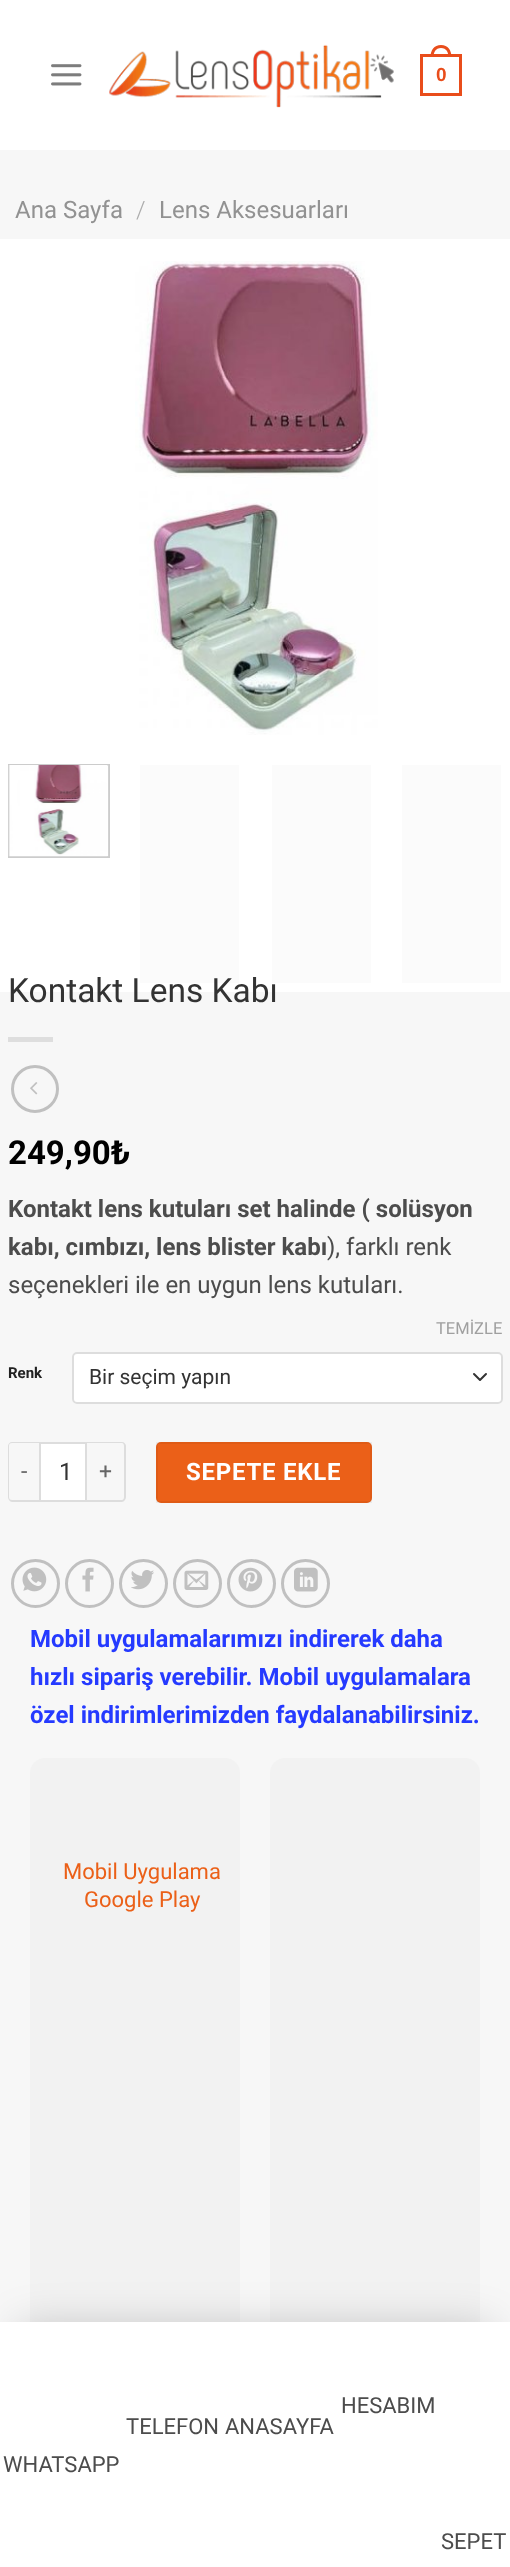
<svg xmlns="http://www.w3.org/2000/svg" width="510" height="2567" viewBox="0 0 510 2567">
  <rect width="100%" height="100%" fill="rgb(255,255,255)"/>
  <image x="51" y="64" width="31" height="22" href="pic1.png"/>
  <image x="109" y="44" width="285" height="64" href="pic2.png"/>
  <rect x="421.5" y="55.5" width="39" height="39" fill="none" stroke="rgb(233,77,27)" stroke-width="3"/>
  <path d="M441 45C448 45 451.5 50.5 451.5 57H430.5C430.5 50.5 434 45 441 45ZM441 48C446.5 48 448.5 52.5 448.5 57H433.5C433.5 52.5 435.5 48 441 48Z" fill="rgb(233,77,27)" fill-rule="evenodd"/>
  <text x="436" y="81" font-family="Liberation Sans" font-size="19" font-weight="bold" fill="rgb(233,77,27)">0</text>
  <rect x="0" y="150" width="510" height="2172" fill="rgb(247,247,247)"/>
  <text x="15" y="218" font-family="Roboto" font-size="24" fill="rgb(146,146,146)">Ana Sayfa</text>
  <text x="136" y="218" font-family="Roboto" font-size="24" font-weight="300" fill="rgb(172,172,172)">/</text>
  <text x="159" y="218" font-family="Roboto" font-size="24" fill="rgb(146,146,146)">Lens Aksesuarları</text>
  <rect x="0" y="239" width="510" height="753" fill="rgb(255,255,255)"/>
  <image x="135" y="261" width="243" height="474" href="pic3.png"/>
  <rect x="9" y="765" width="100" height="92" fill="none" stroke="rgb(204,204,204)" stroke-width="2"/>
  <image x="8" y="765" width="101" height="92" href="pic4.png"/>
  <rect x="140" y="765" width="99" height="218" fill="rgb(251,251,251)"/>
  <rect x="272" y="765" width="99" height="218" fill="rgb(251,251,251)"/>
  <rect x="402" y="765" width="99" height="218" fill="rgb(251,251,251)"/>
  <text x="8" y="1002" font-family="Roboto" font-size="33.5" fill="rgb(51,51,51)">Kontakt Lens Kabı</text>
  <rect x="8" y="1037" width="45" height="5" fill="rgb(222,222,222)"/>
  <circle cx="35" cy="1089" r="22.5" fill="none" stroke="rgb(192,192,192)" stroke-width="3"/>
  <image x="30" y="1082" width="8" height="13" href="pic5.png"/>
  <text x="8" y="1164" font-family="Roboto" font-size="33" font-weight="bold" fill="rgb(0,0,0)">249,90₺</text>
  <g font-family="Roboto" font-size="24" font-weight="bold" fill="rgb(76,76,76)">
    <text>
      <tspan x="8" y="1217">Kontakt lens kutuları set halinde ( solüsyon</tspan>
      <tspan x="8" y="1255">kabı, cımbızı, lens blister kabı</tspan>
    </text>
  </g>
  <g font-family="Roboto" font-size="24" fill="rgb(76,76,76)">
    <text x="327" y="1255">), farklı renk</text>
    <text x="8" y="1293">seçenekleri ile en uygun lens kutuları.</text>
  </g>
  <text x="8" y="1378" font-family="Roboto" font-size="15" font-weight="bold" fill="rgb(34,34,34)">Renk</text>
  <text x="436" y="1334" font-family="Roboto" font-size="16.5" fill="rgb(160,160,160)">TEMİZLE</text>
  <rect x="72" y="1352" width="431" height="52" rx="5" fill="rgb(255,255,255)"/>
  <path d="M474 1374L480 1380L486 1374" fill="none" stroke="rgb(51,51,51)" stroke-width="2" stroke-linecap="round" stroke-linejoin="round"/>
  <rect x="73" y="1353" width="429" height="50" rx="4" fill="none" stroke="rgb(221,221,221)" stroke-width="2"/>
  <text x="89" y="1384" font-family="Roboto" font-size="21" fill="rgb(51,51,51)">Bir seçim yapın</text>
  <path d="M12 1442H39V1502H12C10 1502 8 1499 8 1497V1446C8 1444 10 1442 12 1442ZM12 1443H39V1500H12C10 1500 9 1499 9 1497V1446C9 1444 10 1443 12 1443Z" fill="rgb(221,221,221)" fill-rule="evenodd"/>
  <text x="21" y="1479" font-family="Roboto" font-size="23" letter-spacing="1" fill="rgb(102,102,102)">-</text>
  <rect x="40" y="1443" width="46" height="58" fill="rgb(255,255,255)" stroke="rgb(221,221,221)" stroke-width="2"/>
  <text x="59" y="1480" font-family="Roboto" font-size="24" fill="rgb(51,51,51)">1</text>
  <path d="M87 1442H122C124 1442 126 1444 126 1446V1497C126 1499 124 1502 122 1502H87ZM87 1443H122C123 1443 124 1444 124 1446V1497C124 1499 123 1500 122 1500H87Z" fill="rgb(221,221,221)" fill-rule="evenodd"/>
  <text x="99" y="1479" font-family="Roboto" font-size="23" letter-spacing="1" fill="rgb(102,102,102)">+</text>
  <rect x="156" y="1442" width="216" height="61" rx="5" fill="rgb(235,96,24)"/>
  <rect x="157" y="1443" width="214" height="59" fill="none" stroke="rgba(0,0,0,0.05)" stroke-width="2"/>
  <text x="186" y="1480" font-family="Roboto" font-size="24" font-weight="bold" letter-spacing="0.75" fill="rgb(255,255,255)">SEPETE EKLE</text>
  <circle cx="35.5" cy="1583.5" r="23" fill="none" stroke="rgb(192,192,192)" stroke-width="3"/>
  <image x="22" y="1567" width="25" height="25" href="pic6.png"/>
  <circle cx="89.5" cy="1583.5" r="23" fill="none" stroke="rgb(192,192,192)" stroke-width="3"/>
  <image x="82" y="1567" width="12" height="25" href="pic7.png"/>
  <circle cx="143.5" cy="1583.5" r="23" fill="none" stroke="rgb(192,192,192)" stroke-width="3"/>
  <image x="131" y="1570" width="23" height="20" href="pic8.png"/>
  <circle cx="197.5" cy="1583.5" r="23" fill="none" stroke="rgb(192,192,192)" stroke-width="3"/>
  <image x="184" y="1570" width="25" height="20" href="pic9.png"/>
  <circle cx="251.5" cy="1583.5" r="23" fill="none" stroke="rgb(192,192,192)" stroke-width="3"/>
  <image x="238" y="1567" width="25" height="25" href="pic10.png"/>
  <circle cx="305.5" cy="1583.5" r="23" fill="none" stroke="rgb(192,192,192)" stroke-width="3"/>
  <image x="294" y="1567" width="24" height="25" href="pic11.png"/>
  <g font-family="Roboto" font-size="24" font-weight="bold" fill="rgb(37,58,255)">
    <text>
      <tspan x="30" y="1647">Mobil uygulamalarımızı indirerek daha</tspan>
      <tspan x="30" y="1685">hızlı sipariş verebilir. Mobil uygulamalara</tspan>
      <tspan x="30" y="1723">özel indirimlerimizden faydalanabilirsiniz.</tspan>
    </text>
  </g>
  <rect x="30" y="1758" width="210" height="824" rx="15" fill="rgb(242,242,242)"/>
  <g font-family="Roboto" font-size="22" fill="rgb(235,96,24)">
    <text x="63" y="1879">Mobil Uygulama</text>
    <text x="84" y="1907">Google Play</text>
  </g>
  <rect x="270" y="1758" width="210" height="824" rx="15" fill="rgb(242,242,242)"/>
  <rect x="18" y="2328" width="474" height="210" fill="rgba(0,0,0,0.2)" filter="blur(22px)"/>
  <rect x="0" y="2322" width="510" height="245" fill="rgb(255,255,255)"/>
  <g font-family="Roboto" font-size="22" fill="rgb(76,76,76)">
    <text x="341" y="2413">HESABIM</text>
    <text x="126" y="2434">TELEFON</text>
    <text x="225" y="2434">ANASAYFA</text>
    <text x="3" y="2472">WHATSAPP</text>
    <text x="441" y="2549">SEPET</text>
  </g>
</svg>
